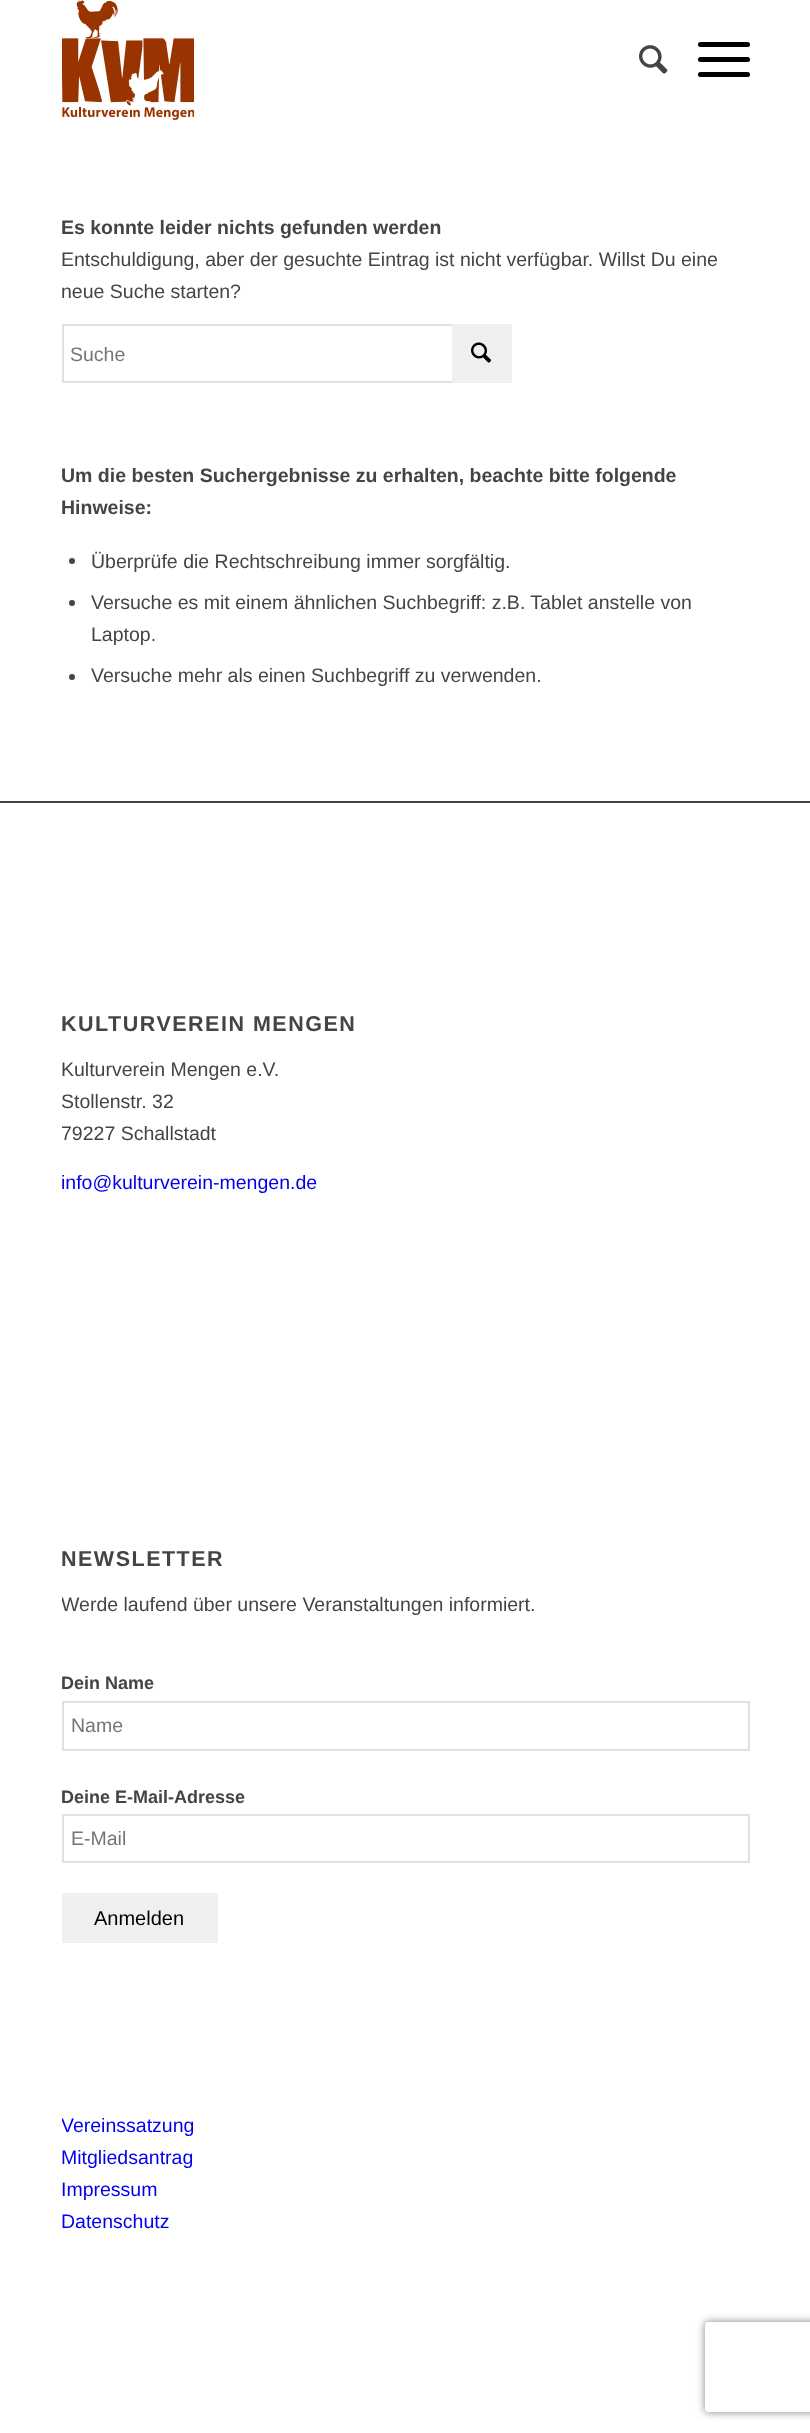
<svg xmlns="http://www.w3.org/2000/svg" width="810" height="2433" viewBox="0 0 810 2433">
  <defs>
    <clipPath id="clip1"><rect x="62" y="1548" width="688" height="425"/></clipPath>
    <clipPath id="clip2"><rect x="62" y="2093" width="688" height="162"/></clipPath>
    <clipPath id="clip3"><path d="M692 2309H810V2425H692ZM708 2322H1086C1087.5 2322 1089 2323.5 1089 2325V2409C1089 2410.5 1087.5 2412 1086 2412H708C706.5 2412 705 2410.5 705 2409V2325C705 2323.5 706.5 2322 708 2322Z" clip-rule="evenodd"/></clipPath>
  </defs>
  <rect width="100%" height="100%" fill="rgb(255,255,255)"/>
  <image x="62" y="0" width="132" height="120" href="pic1.png"/>
  <image x="639" y="45" width="29" height="29" href="pic2.png"/>
  <rect x="698" y="57" width="52" height="5" rx="2.5" fill="rgb(0,0,0)"/>
  <rect x="698" y="42" width="52" height="5" rx="2.5" fill="rgb(0,0,0)"/>
  <rect x="698" y="72" width="52" height="5" rx="2.5" fill="rgb(0,0,0)"/>
  <text x="61" y="234" font-family="Liberation Sans" font-size="19.5" font-weight="bold" fill="rgb(68,68,68)">Es konnte leider nichts gefunden werden</text>
  <g font-family="Liberation Sans" font-size="19.5" fill="rgb(68,68,68)">
    <text>
      <tspan x="61" y="266">Entschuldigung, aber der gesuchte Eintrag ist nicht verfügbar. Willst Du eine</tspan>
      <tspan x="61" y="298">neue Suche starten?</tspan>
    </text>
  </g>
  <rect x="63" y="325" width="448" height="57" fill="none" stroke="rgb(225,225,225)" stroke-width="2"/>
  <text x="70" y="361" font-family="Liberation Sans" font-size="19.5" fill="rgb(117,117,117)">Suche</text>
  <rect x="452" y="324" width="60" height="59" fill="rgb(239,239,239)"/>
  <image x="471" y="342" width="21" height="21" href="pic3.png"/>
  <g font-family="Liberation Sans" font-size="19.5" font-weight="bold" fill="rgb(68,68,68)">
    <text>
      <tspan x="61" y="482">Um die besten Suchergebnisse zu erhalten, beachte bitte folgende</tspan>
      <tspan x="61" y="514">Hinweise:</tspan>
    </text>
  </g>
  <circle cx="72" cy="561" r="3" fill="rgb(68,68,68)"/>
  <text x="91" y="568" font-family="Liberation Sans" font-size="19.5" fill="rgb(68,68,68)">Überprüfe die Rechtschreibung immer sorgfältig.</text>
  <circle cx="72" cy="603" r="3" fill="rgb(68,68,68)"/>
  <g font-family="Liberation Sans" font-size="19.5" fill="rgb(68,68,68)">
    <text>
      <tspan x="91" y="609">Versuche es mit einem ähnlichen Suchbegriff: z.B. Tablet anstelle von</tspan>
      <tspan x="91" y="641">Laptop.</tspan>
    </text>
  </g>
  <circle cx="72" cy="677" r="3" fill="rgb(68,68,68)"/>
  <text x="91" y="682" font-family="Liberation Sans" font-size="19.5" fill="rgb(68,68,68)">Versuche mehr als einen Suchbegriff zu verwenden.</text>
  <rect x="0" y="801" width="810" height="2" fill="rgb(68,68,68)"/>
  <text x="61" y="1031" font-family="Liberation Sans" font-size="21.5" font-weight="bold" letter-spacing="1.5" fill="rgb(68,68,68)">KULTURVEREIN MENGEN</text>
  <g font-family="Liberation Sans" font-size="19.5" fill="rgb(68,68,68)">
    <text>
      <tspan x="61" y="1076">Kulturverein Mengen e.V.</tspan>
      <tspan x="61" y="1108">Stollenstr. 32</tspan>
      <tspan x="61" y="1140">79227 Schallstadt</tspan>
    </text>
  </g>
  <text x="61" y="1189" font-family="Liberation Sans" font-size="19.5" fill="rgb(0,0,238)">info@kulturverein-mengen.de</text>
  <text x="61" y="1566" font-family="Liberation Sans" font-size="21.5" font-weight="bold" letter-spacing="1.5" fill="rgb(68,68,68)">NEWSLETTER</text>
  <g clip-path="url(#clip1)">
    <text x="61" y="1611" font-family="Liberation Sans" font-size="19.5" fill="rgb(68,68,68)">Werde laufend über unsere Veranstaltungen informiert.</text>
  </g>
  <text x="61" y="1689" font-family="Liberation Sans" font-size="18" font-weight="bold" fill="rgb(68,68,68)">Dein Name</text>
  <rect x="63" y="1702" width="686" height="48" fill="none" stroke="rgb(225,225,225)" stroke-width="2"/>
  <text x="71" y="1732" font-family="Liberation Sans" font-size="19.5" fill="rgb(117,117,117)">Name</text>
  <text x="61" y="1803" font-family="Liberation Sans" font-size="18" font-weight="bold" fill="rgb(68,68,68)">Deine E-Mail-Adresse</text>
  <rect x="63" y="1815" width="686" height="47" fill="none" stroke="rgb(225,225,225)" stroke-width="2"/>
  <text x="71" y="1845" font-family="Liberation Sans" font-size="19.5" fill="rgb(117,117,117)">E-Mail</text>
  <rect x="62" y="1893" width="156" height="50" fill="rgb(239,239,239)"/>
  <text x="94" y="1925" font-family="Liberation Sans" font-size="20" fill="rgb(0,0,0)">Anmelden</text>
  <g clip-path="url(#clip2)">
    <text x="61" y="2132" font-family="Liberation Sans" font-size="19.5" fill="rgb(0,0,238)">Vereinssatzung</text>
  </g>
  <g font-family="Liberation Sans" font-size="19.5" fill="rgb(0,0,238)">
    <text>
      <tspan x="61" y="2164">Mitgliedsantrag</tspan>
      <tspan x="61" y="2196">Impressum</tspan>
      <tspan x="61" y="2228">Datenschutz</tspan>
    </text>
  </g>
  <g clip-path="url(#clip3)">
    <rect x="705" y="2322" width="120" height="90" rx="3" fill="rgb(128,128,128)" filter="blur(4px)"/>
  </g>
</svg>
